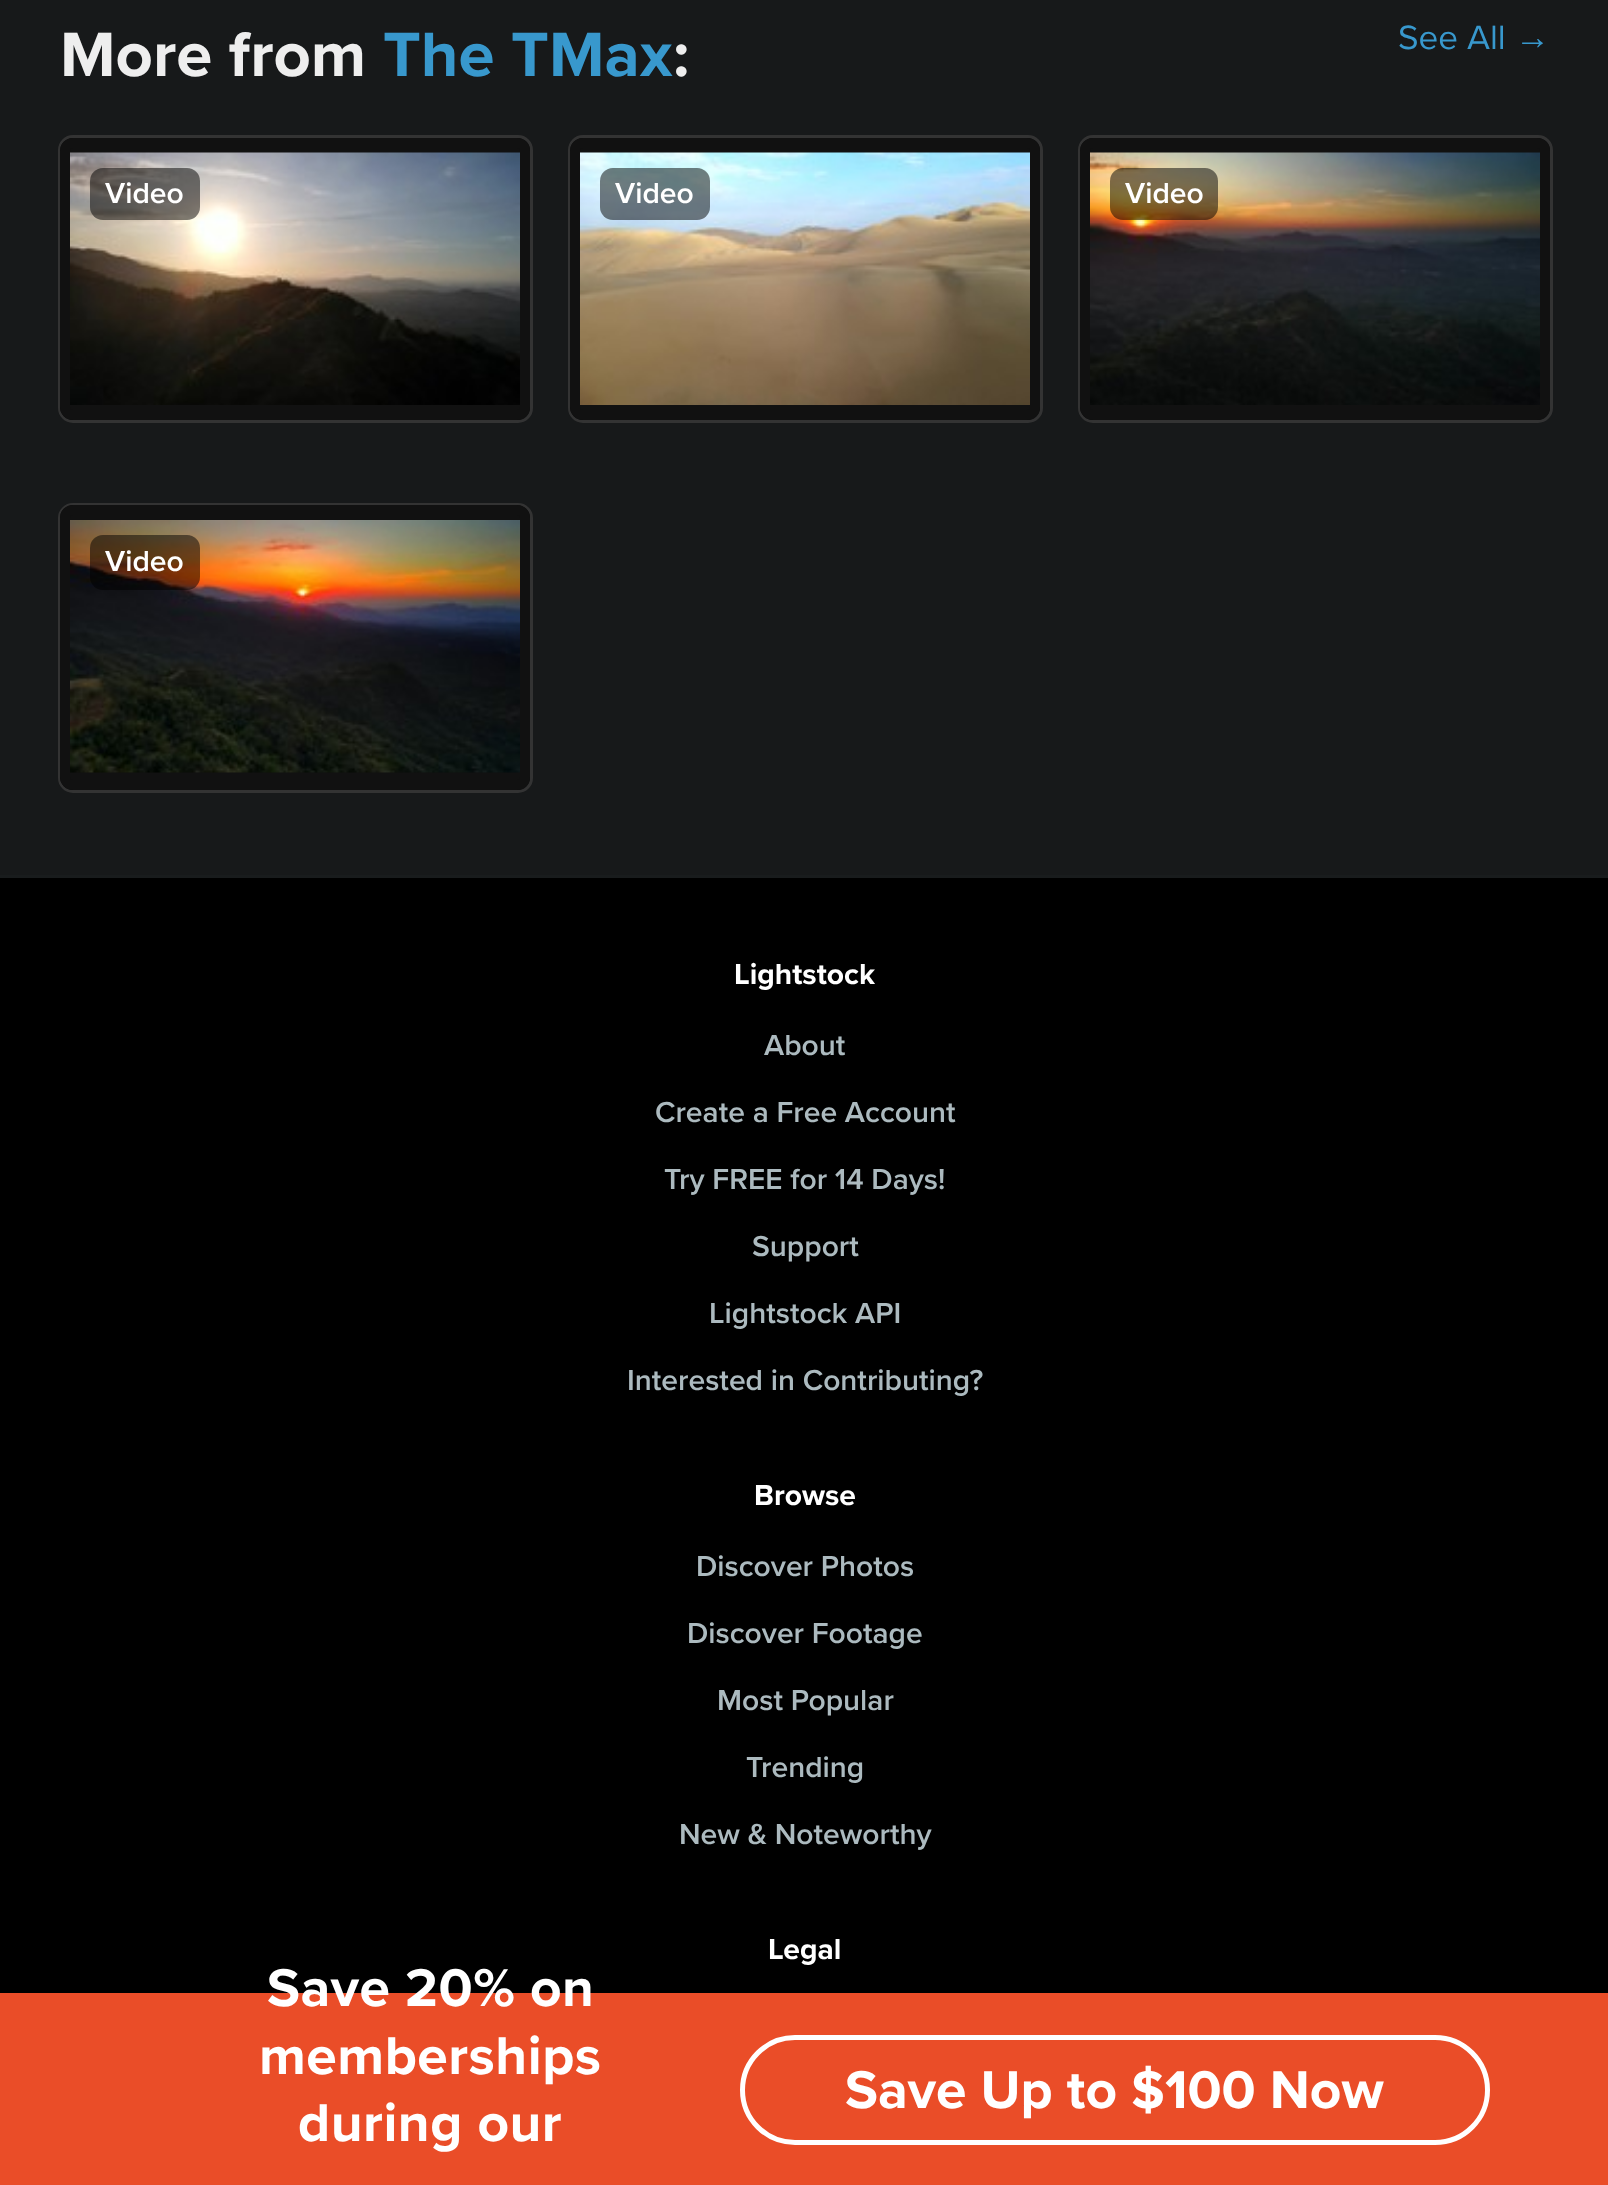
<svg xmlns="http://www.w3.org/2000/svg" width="1608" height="2185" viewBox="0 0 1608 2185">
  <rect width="100%" height="100%" fill="rgb(0,0,0)"/>
  <rect x="0" y="0" width="1608" height="875" fill="rgb(23,25,26)"/>
  <rect x="0" y="875" width="1608" height="3" fill="rgb(25,28,29)"/>
  <text x="60" y="76" font-family="Proxima Nova" font-size="65" font-weight="bold" fill="rgb(238,238,238)">More from</text>
  <text x="383" y="76" font-family="Proxima Nova" font-size="65" font-weight="bold" fill="rgb(56,152,205)">The TMax</text>
  <text x="673" y="76" font-family="Proxima Nova" font-size="65" font-weight="bold" fill="rgb(238,238,238)">:</text>
  <text x="1398" y="49" font-family="Proxima Nova" font-size="35" fill="rgb(56,152,205)">See All</text>
  <text x="1515" y="49" font-family="Liberation Sans" font-size="35" fill="rgb(56,152,205)">→</text>
  <rect x="59.5" y="136.5" width="472" height="285" rx="13.5" fill="none" stroke="rgb(51,51,51)" stroke-width="3"/>
  <rect x="60" y="138" width="470" height="282" rx="13" fill="rgb(17,17,17)"/>
  <image x="70" y="152" width="450" height="253" href="pic1.png"/>
  <rect x="65" y="143" width="460" height="272" rx="8" fill="none" stroke="rgb(17,17,17)" stroke-width="10"/>
  <rect x="90" y="168" width="110" height="52" rx="13" fill="rgba(0,0,0,0.5)"/>
  <text x="105" y="203" font-family="Proxima Nova" font-size="30" font-weight="600" fill="rgb(255,255,255)">Video</text>
  <rect x="569.5" y="136.5" width="472" height="285" rx="13.5" fill="none" stroke="rgb(51,51,51)" stroke-width="3"/>
  <rect x="570" y="138" width="470" height="282" rx="13" fill="rgb(17,17,17)"/>
  <image x="580" y="152" width="450" height="253" href="pic2.png"/>
  <rect x="575" y="143" width="460" height="272" rx="8" fill="none" stroke="rgb(17,17,17)" stroke-width="10"/>
  <rect x="600" y="168" width="110" height="52" rx="13" fill="rgba(0,0,0,0.5)"/>
  <text x="615" y="203" font-family="Proxima Nova" font-size="30" font-weight="600" fill="rgb(255,255,255)">Video</text>
  <rect x="1079.5" y="136.5" width="472" height="285" rx="13.5" fill="none" stroke="rgb(51,51,51)" stroke-width="3"/>
  <rect x="1080" y="138" width="470" height="282" rx="13" fill="rgb(17,17,17)"/>
  <image x="1090" y="152" width="450" height="253" href="pic3.png"/>
  <rect x="1085" y="143" width="460" height="272" rx="8" fill="none" stroke="rgb(17,17,17)" stroke-width="10"/>
  <rect x="1110" y="168" width="108" height="52" rx="13" fill="rgba(0,0,0,0.5)"/>
  <text x="1125" y="203" font-family="Proxima Nova" font-size="30" font-weight="600" fill="rgb(255,255,255)">Video</text>
  <rect x="59.5" y="504.5" width="472" height="287" rx="13.5" fill="none" stroke="rgb(51,51,51)" stroke-width="3"/>
  <rect x="60" y="505" width="470" height="285" rx="13" fill="rgb(17,17,17)"/>
  <image x="70" y="520" width="450" height="253" href="pic4.png"/>
  <rect x="65" y="510" width="460" height="275" rx="8" fill="none" stroke="rgb(17,17,17)" stroke-width="10"/>
  <rect x="90" y="535" width="110" height="55" rx="13" fill="rgba(0,0,0,0.5)"/>
  <text x="105" y="571" font-family="Proxima Nova" font-size="30" font-weight="600" fill="rgb(255,255,255)">Video</text>
  <text x="734" y="984" font-family="Proxima Nova" font-size="30" font-weight="bold" fill="rgb(255,255,255)">Lightstock</text>
  <g font-family="Proxima Nova" font-size="30" font-weight="600" fill="rgb(172,186,191)">
    <text x="764" y="1055">About</text>
    <text x="655" y="1122">Create a Free Account</text>
    <text x="664" y="1189">Try FREE for 14 Days!</text>
    <text x="752" y="1256">Support</text>
    <text x="709" y="1323">Lightstock API</text>
    <text x="627" y="1390">Interested in Contributing?</text>
  </g>
  <text x="754" y="1505" font-family="Proxima Nova" font-size="30" font-weight="bold" fill="rgb(255,255,255)">Browse</text>
  <g font-family="Proxima Nova" font-size="30" font-weight="600" fill="rgb(172,186,191)">
    <text x="696" y="1576">Discover Photos</text>
    <text x="687" y="1643">Discover Footage</text>
    <text x="717" y="1710">Most Popular</text>
    <text x="746" y="1777">Trending</text>
    <text x="679" y="1844">New &amp; Noteworthy</text>
  </g>
  <text x="768" y="1959" font-family="Proxima Nova" font-size="30" font-weight="bold" fill="rgb(255,255,255)">Legal</text>
  <rect x="0" y="1993" width="1608" height="192" fill="rgb(234,77,40)"/>
  <g font-family="Proxima Nova" font-size="55" font-weight="bold" letter-spacing="0.5" fill="rgb(255,255,255)">
    <text x="267" y="2006">Save 20% on</text>
    <text x="259" y="2074">memberships</text>
    <text x="298" y="2141">during our</text>
  </g>
  <rect x="742.5" y="2037.5" width="745" height="105" rx="52.5" fill="none" stroke="rgb(255,255,255)" stroke-width="5"/>
  <text x="845" y="2108" font-family="Proxima Nova" font-size="55" font-weight="bold" fill="rgb(255,255,255)">Save Up to $100 Now</text>
</svg>
